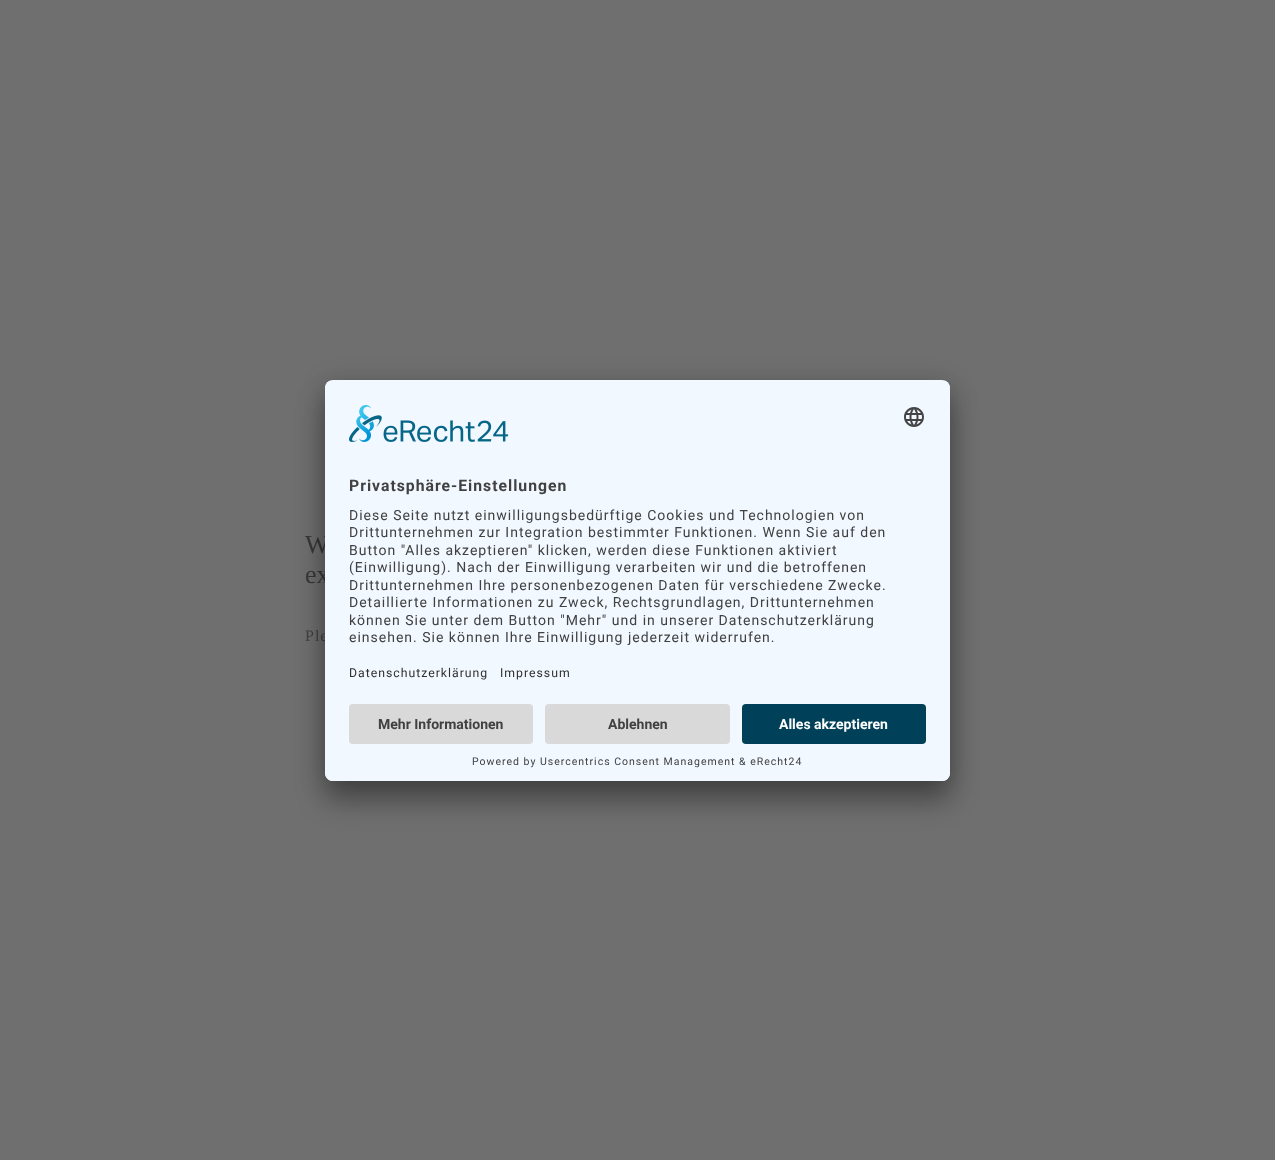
<svg xmlns="http://www.w3.org/2000/svg" width="1275" height="1160" viewBox="0 0 1275 1160">
  <defs>
    <clipPath id="clip1"><rect x="325" y="380" width="625" height="401" rx="8"/></clipPath>
    <clipPath id="clip2"><path d="M333 380H942C946.5 380 950 383.5 950 388V696H325V388C325 383.5 328.5 380 333 380Z"/></clipPath>
  </defs>
  <rect width="100%" height="100%" fill="rgb(111,111,111)"/>
  <g font-family="Liberation Serif" font-size="26" fill="rgb(56,56,56)">
    <text>
      <tspan x="305" y="553">W</tspan>
      <tspan x="305" y="583">ex</tspan>
    </text>
  </g>
  <text x="305" y="641" font-family="Liberation Serif" font-size="16" letter-spacing="1" fill="rgb(65,65,65)">Ple</text>
  <rect x="325" y="400" width="625" height="401" rx="8" fill="rgba(0,0,0,0.3)" filter="blur(14px)"/>
  <rect x="325" y="385" width="625" height="401" rx="8" fill="rgba(0,0,0,0.22)" filter="blur(13px)"/>
  <rect x="325" y="380" width="625" height="401" rx="8" fill="rgb(241,248,255)"/>
  <g clip-path="url(#clip1)">
    <g clip-path="url(#clip2)">
      <rect x="325" y="381" width="625" height="315" fill="rgb(241,248,255)"/>
    </g>
  </g>
  <image x="349" y="405" width="160" height="37" href="pic1.png"/>
  <image x="904" y="407" width="20" height="20" href="pic2.png"/>
  <text x="349" y="491" font-family="Roboto" font-size="15.75" font-weight="bold" letter-spacing="1" fill="rgb(65,65,65)">Privatsphäre-Einstellungen</text>
  <g font-family="Roboto" font-size="14" letter-spacing="1" fill="rgb(65,65,65)">
    <text>
      <tspan x="349" y="520">Diese Seite nutzt einwilligungsbedürftige Cookies und Technologien von</tspan>
      <tspan x="349" y="537">Drittunternehmen zur Integration bestimmter Funktionen. Wenn Sie auf den</tspan>
      <tspan x="349" y="555">Button "Alles akzeptieren" klicken, werden diese Funktionen aktiviert</tspan>
      <tspan x="349" y="572">(Einwilligung). Nach der Einwilligung verarbeiten wir und die betroffenen</tspan>
      <tspan x="349" y="590">Drittunternehmen Ihre personenbezogenen Daten für verschiedene Zwecke.</tspan>
      <tspan x="349" y="607">Detaillierte Informationen zu Zweck, Rechtsgrundlagen, Drittunternehmen</tspan>
      <tspan x="349" y="625">können Sie unter dem Button "Mehr" und in unserer Datenschutzerklärung</tspan>
      <tspan x="349" y="642">einsehen. Sie können Ihre Einwilligung jederzeit widerrufen.</tspan>
    </text>
  </g>
  <g font-family="Roboto" font-size="12.25" letter-spacing="1" fill="rgb(48,48,48)">
    <text x="349" y="677">Datenschutzerklärung</text>
    <text x="500" y="677">Impressum</text>
  </g>
  <path d="M325 696H950V773C950 777.5 946.5 781 942 781H333C328.5 781 325 777.5 325 773Z" fill="rgb(241,248,255)"/>
  <rect x="349" y="704" width="184" height="40" rx="4" fill="rgb(217,217,217)"/>
  <text x="378" y="729" font-family="Roboto" font-size="14" font-weight="bold" fill="rgb(65,65,65)">Mehr Informationen</text>
  <rect x="545" y="704" width="185" height="40" rx="4" fill="rgb(217,217,217)"/>
  <text x="608" y="729" font-family="Roboto" font-size="14" font-weight="bold" fill="rgb(65,65,65)">Ablehnen</text>
  <rect x="742" y="704" width="184" height="40" rx="4" fill="rgb(0,64,89)"/>
  <text x="779" y="729" font-family="Roboto" font-size="14" font-weight="bold" fill="rgb(255,255,255)">Alles akzeptieren</text>
  <text x="472" y="765" font-family="Roboto" font-size="10.5" letter-spacing="1" fill="rgb(65,65,65)">Powered by Usercentrics Consent Management &amp; eRecht24</text>
</svg>
